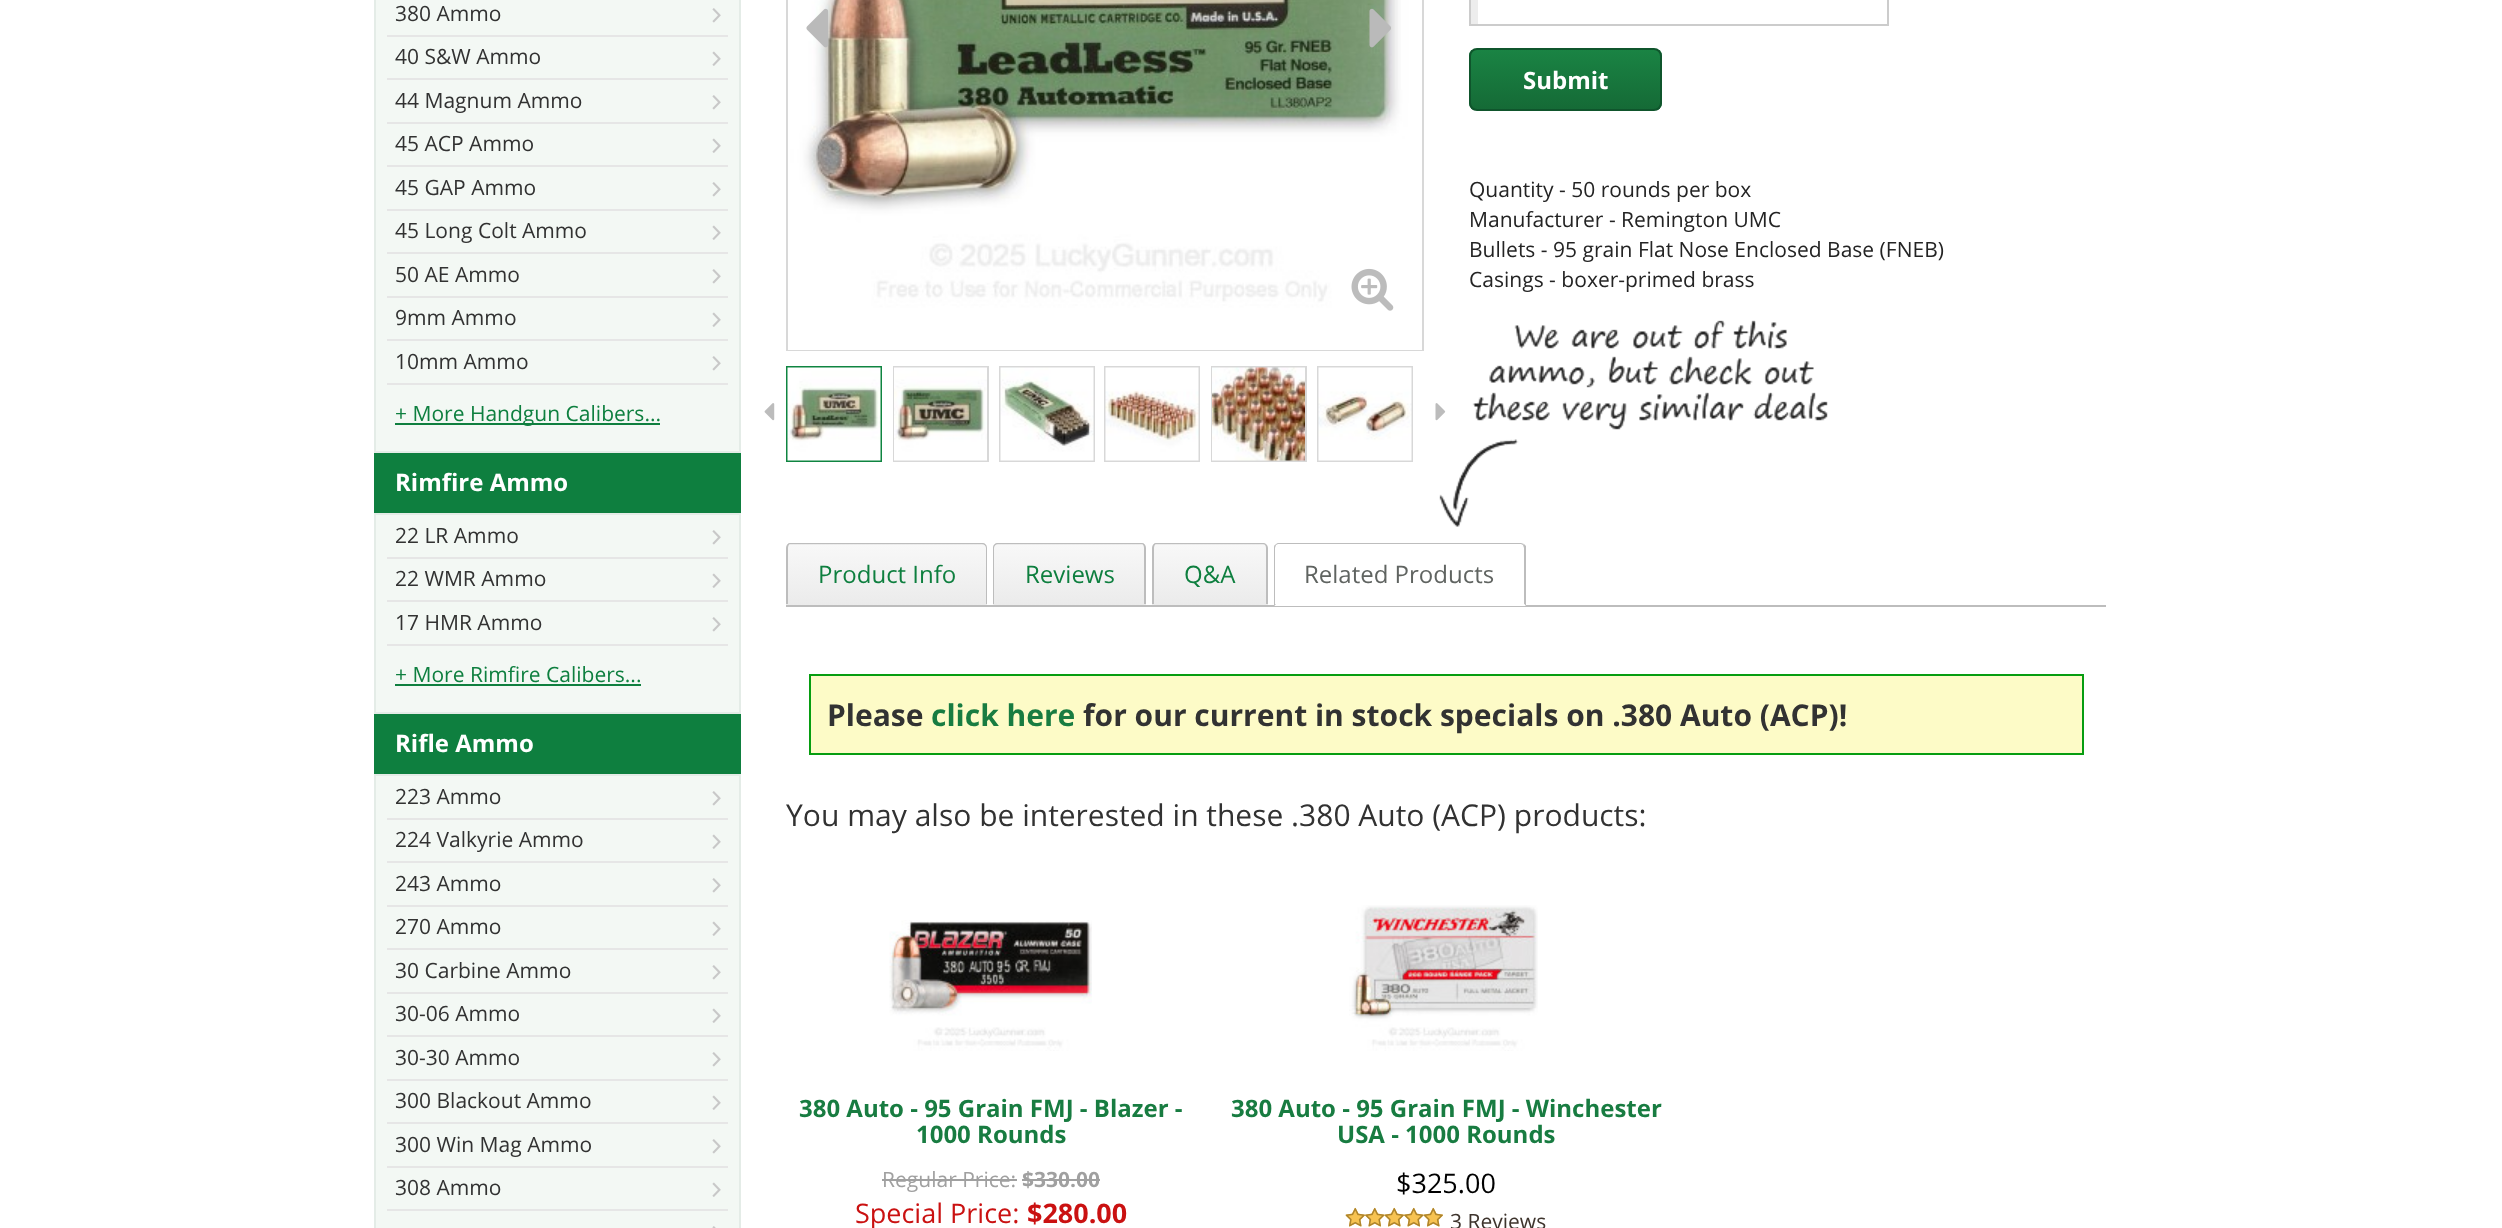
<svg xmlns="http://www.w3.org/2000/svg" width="2502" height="1228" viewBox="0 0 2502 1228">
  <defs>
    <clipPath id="clip1"><rect x="1470" y="0" width="417" height="24"/></clipPath>
    <clipPath id="clip2"><rect x="1469" y="48" width="193" height="63" rx="8"/></clipPath>
    <linearGradient id="g1" gradientUnits="userSpaceOnUse" x1="1565" y1="49" x2="1565" y2="110"><stop offset="0" stop-color="rgb(26,132,68)"/><stop offset="1" stop-color="rgb(21,106,54)"/></linearGradient>
    <clipPath id="clip3"><path d="M791 543H982C985 543 987 545 987 548V605H786V548C786 545 788 543 791 543Z"/></clipPath>
    <linearGradient id="g2" gradientUnits="userSpaceOnUse" x1="887" y1="485" x2="887" y2="545"><stop offset="0" stop-color="rgb(248,248,248)"/><stop offset="1" stop-color="rgb(235,235,235)"/></linearGradient>
    <linearGradient id="g3" gradientUnits="userSpaceOnUse" x1="887" y1="545" x2="887" y2="605"><stop offset="0" stop-color="rgb(248,248,248)"/><stop offset="1" stop-color="rgb(235,235,235)"/></linearGradient>
    <clipPath id="clip4"><path d="M998 543H1141C1144 543 1146 545 1146 548V605H993V548C993 545 995 543 998 543Z"/></clipPath>
    <linearGradient id="g4" gradientUnits="userSpaceOnUse" x1="1070" y1="485" x2="1070" y2="545"><stop offset="0" stop-color="rgb(248,248,248)"/><stop offset="1" stop-color="rgb(235,235,235)"/></linearGradient>
    <linearGradient id="g5" gradientUnits="userSpaceOnUse" x1="1070" y1="545" x2="1070" y2="605"><stop offset="0" stop-color="rgb(248,248,248)"/><stop offset="1" stop-color="rgb(235,235,235)"/></linearGradient>
    <clipPath id="clip5"><path d="M1157 543H1263C1266 543 1268 545 1268 548V605H1152V548C1152 545 1154 543 1157 543Z"/></clipPath>
    <linearGradient id="g6" gradientUnits="userSpaceOnUse" x1="1210" y1="485" x2="1210" y2="545"><stop offset="0" stop-color="rgb(248,248,248)"/><stop offset="1" stop-color="rgb(235,235,235)"/></linearGradient>
    <linearGradient id="g7" gradientUnits="userSpaceOnUse" x1="1210" y1="545" x2="1210" y2="605"><stop offset="0" stop-color="rgb(248,248,248)"/><stop offset="1" stop-color="rgb(235,235,235)"/></linearGradient>
  </defs>
  <rect width="100%" height="100%" fill="rgb(255,255,255)"/>
  <rect x="376" y="0" width="363" height="1228" fill="rgb(243,248,244)"/>
  <rect x="375" y="-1" width="365" height="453" fill="none" stroke="rgb(228,236,231)" stroke-width="2"/>
  <rect x="387" y="35" width="341" height="2" fill="rgb(230,230,230)"/>
  <text x="395" y="21" font-family="Open Sans" font-size="21" fill="rgb(50,50,50)">380 Ammo</text>
  <image x="712" y="8" width="9" height="15" href="pic1.png"/>
  <rect x="387" y="78" width="341" height="2" fill="rgb(230,230,230)"/>
  <text x="395" y="64" font-family="Open Sans" font-size="21" fill="rgb(50,50,50)">40 S&amp;W Ammo</text>
  <image x="712" y="51" width="9" height="15" href="pic2.png"/>
  <rect x="387" y="122" width="341" height="2" fill="rgb(230,230,230)"/>
  <text x="395" y="108" font-family="Open Sans" font-size="21" fill="rgb(50,50,50)">44 Magnum Ammo</text>
  <image x="712" y="95" width="9" height="15" href="pic1.png"/>
  <rect x="387" y="165" width="341" height="2" fill="rgb(230,230,230)"/>
  <text x="395" y="151" font-family="Open Sans" font-size="21" fill="rgb(50,50,50)">45 ACP Ammo</text>
  <image x="712" y="138" width="9" height="15" href="pic2.png"/>
  <rect x="387" y="209" width="341" height="2" fill="rgb(230,230,230)"/>
  <text x="395" y="195" font-family="Open Sans" font-size="21" fill="rgb(50,50,50)">45 GAP Ammo</text>
  <image x="712" y="182" width="9" height="15" href="pic1.png"/>
  <rect x="387" y="252" width="341" height="2" fill="rgb(230,230,230)"/>
  <text x="395" y="238" font-family="Open Sans" font-size="21" fill="rgb(50,50,50)">45 Long Colt Ammo</text>
  <image x="712" y="225" width="9" height="15" href="pic2.png"/>
  <rect x="387" y="296" width="341" height="2" fill="rgb(230,230,230)"/>
  <text x="395" y="282" font-family="Open Sans" font-size="21" fill="rgb(50,50,50)">50 AE Ammo</text>
  <image x="712" y="269" width="9" height="15" href="pic1.png"/>
  <rect x="387" y="339" width="341" height="2" fill="rgb(230,230,230)"/>
  <text x="395" y="325" font-family="Open Sans" font-size="21" fill="rgb(50,50,50)">9mm Ammo</text>
  <image x="712" y="312" width="9" height="15" href="pic2.png"/>
  <rect x="387" y="383" width="341" height="2" fill="rgb(230,230,230)"/>
  <text x="395" y="369" font-family="Open Sans" font-size="21" fill="rgb(50,50,50)">10mm Ammo</text>
  <image x="712" y="356" width="9" height="15" href="pic1.png"/>
  <rect x="395" y="423" width="265" height="2" fill="rgb(15,127,63)"/>
  <text x="395" y="421" font-family="Open Sans" font-size="21" fill="rgb(14,127,63)">+ More Handgun Calibers...</text>
  <rect x="374" y="453" width="367" height="60" fill="rgb(14,127,63)"/>
  <text x="395" y="491" font-family="Open Sans" font-size="24" font-weight="bold" fill="rgb(255,255,255)">Rimfire Ammo</text>
  <rect x="375" y="514" width="365" height="199" fill="none" stroke="rgb(228,236,231)" stroke-width="2"/>
  <rect x="387" y="557" width="341" height="2" fill="rgb(230,230,230)"/>
  <text x="395" y="543" font-family="Open Sans" font-size="21" fill="rgb(50,50,50)">22 LR Ammo</text>
  <image x="712" y="530" width="9" height="15" href="pic1.png"/>
  <rect x="387" y="600" width="341" height="2" fill="rgb(230,230,230)"/>
  <text x="395" y="586" font-family="Open Sans" font-size="21" fill="rgb(50,50,50)">22 WMR Ammo</text>
  <image x="712" y="573" width="9" height="15" href="pic2.png"/>
  <rect x="387" y="644" width="341" height="2" fill="rgb(230,230,230)"/>
  <text x="395" y="630" font-family="Open Sans" font-size="21" fill="rgb(50,50,50)">17 HMR Ammo</text>
  <image x="712" y="617" width="9" height="15" href="pic1.png"/>
  <text x="395" y="682" font-family="Open Sans" font-size="21" fill="rgb(14,127,63)">+ More Rimfire Calibers...</text>
  <rect x="395" y="684" width="246" height="2" fill="rgb(15,127,63)"/>
  <rect x="374" y="714" width="367" height="60" fill="rgb(14,127,63)"/>
  <text x="395" y="752" font-family="Open Sans" font-size="24" font-weight="bold" fill="rgb(255,255,255)">Rifle Ammo</text>
  <rect x="375" y="775" width="365" height="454" fill="none" stroke="rgb(228,236,231)" stroke-width="2"/>
  <rect x="387" y="818" width="341" height="2" fill="rgb(230,230,230)"/>
  <text x="395" y="804" font-family="Open Sans" font-size="21" fill="rgb(50,50,50)">223 Ammo</text>
  <image x="712" y="791" width="9" height="15" href="pic1.png"/>
  <rect x="387" y="861" width="341" height="2" fill="rgb(230,230,230)"/>
  <text x="395" y="847" font-family="Open Sans" font-size="21" fill="rgb(50,50,50)">224 Valkyrie Ammo</text>
  <image x="712" y="834" width="9" height="15" href="pic2.png"/>
  <rect x="387" y="905" width="341" height="2" fill="rgb(230,230,230)"/>
  <text x="395" y="891" font-family="Open Sans" font-size="21" fill="rgb(50,50,50)">243 Ammo</text>
  <image x="712" y="878" width="9" height="15" href="pic1.png"/>
  <rect x="387" y="948" width="341" height="2" fill="rgb(230,230,230)"/>
  <text x="395" y="934" font-family="Open Sans" font-size="21" fill="rgb(50,50,50)">270 Ammo</text>
  <image x="712" y="921" width="9" height="15" href="pic2.png"/>
  <rect x="387" y="992" width="341" height="2" fill="rgb(230,230,230)"/>
  <text x="395" y="978" font-family="Open Sans" font-size="21" fill="rgb(50,50,50)">30 Carbine Ammo</text>
  <image x="712" y="965" width="9" height="15" href="pic1.png"/>
  <rect x="387" y="1035" width="341" height="2" fill="rgb(230,230,230)"/>
  <text x="395" y="1021" font-family="Open Sans" font-size="21" fill="rgb(50,50,50)">30-06 Ammo</text>
  <image x="712" y="1008" width="9" height="15" href="pic2.png"/>
  <rect x="387" y="1079" width="341" height="2" fill="rgb(230,230,230)"/>
  <text x="395" y="1065" font-family="Open Sans" font-size="21" fill="rgb(50,50,50)">30-30 Ammo</text>
  <image x="712" y="1052" width="9" height="15" href="pic1.png"/>
  <rect x="387" y="1122" width="341" height="2" fill="rgb(230,230,230)"/>
  <text x="395" y="1108" font-family="Open Sans" font-size="21" fill="rgb(50,50,50)">300 Blackout Ammo</text>
  <image x="712" y="1095" width="9" height="15" href="pic2.png"/>
  <rect x="387" y="1166" width="341" height="2" fill="rgb(230,230,230)"/>
  <text x="395" y="1152" font-family="Open Sans" font-size="21" fill="rgb(50,50,50)">300 Win Mag Ammo</text>
  <image x="712" y="1139" width="9" height="15" href="pic1.png"/>
  <rect x="387" y="1209" width="341" height="2" fill="rgb(230,230,230)"/>
  <text x="395" y="1195" font-family="Open Sans" font-size="21" fill="rgb(50,50,50)">308 Ammo</text>
  <image x="712" y="1182" width="9" height="15" href="pic2.png"/>
  <image x="712" y="1226" width="4" height="2" href="pic3.png"/>
  <image x="764" y="403" width="11" height="18" href="pic4.png"/>
  <rect x="787" y="-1" width="636" height="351" fill="none" stroke="rgb(216,216,216)" stroke-width="2"/>
  <image x="788" y="0" width="634" height="350" href="pic5.png"/>
  <image x="806" y="8" width="23" height="40" href="pic6.png"/>
  <image x="1369" y="8" width="22" height="40" href="pic7.png"/>
  <image x="1351" y="268" width="43" height="43" href="pic8.png"/>
  <rect x="787" y="367" width="94" height="94" fill="none" stroke="rgb(15,133,65)" stroke-width="2"/>
  <image x="787" y="367" width="94" height="94" href="pic9.png"/>
  <rect x="894" y="367" width="94" height="94" fill="none" stroke="rgb(216,216,216)" stroke-width="2"/>
  <image x="894" y="367" width="93" height="94" href="pic10.png"/>
  <rect x="1000" y="367" width="94" height="94" fill="none" stroke="rgb(216,216,216)" stroke-width="2"/>
  <image x="1000" y="367" width="94" height="94" href="pic11.png"/>
  <rect x="1105" y="367" width="94" height="94" fill="none" stroke="rgb(216,216,216)" stroke-width="2"/>
  <image x="1105" y="367" width="94" height="94" href="pic12.png"/>
  <rect x="1212" y="367" width="94" height="94" fill="none" stroke="rgb(216,216,216)" stroke-width="2"/>
  <image x="1212" y="367" width="93" height="94" href="pic13.png"/>
  <rect x="1318" y="367" width="94" height="94" fill="none" stroke="rgb(216,216,216)" stroke-width="2"/>
  <image x="1318" y="367" width="94" height="94" href="pic14.png"/>
  <image x="1435" y="403" width="11" height="18" href="pic15.png"/>
  <g clip-path="url(#clip1)">
    <path d="M1322-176H2036V172H1322ZM1478-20H1894V32H1478Z" fill="rgb(237,237,237)" fill-rule="evenodd"/>
  </g>
  <rect x="1470" y="-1" width="418" height="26" fill="none" stroke="rgb(204,204,204)" stroke-width="2"/>
  <g clip-path="url(#clip2)">
    <rect x="1469" y="50" width="193" height="60" fill="url(#g1)"/>
  </g>
  <rect x="1470" y="49" width="191" height="61" rx="7" fill="none" stroke="rgb(15,85,44)" stroke-width="2"/>
  <text x="1523" y="89" font-family="Open Sans" font-size="24" font-weight="bold" fill="rgb(255,255,255)">Submit</text>
  <g font-family="Open Sans" font-size="21" fill="rgb(36,36,36)">
    <text>
      <tspan x="1469" y="197">Quantity - 50 rounds per box</tspan>
      <tspan x="1469" y="227">Manufacturer - Remington UMC</tspan>
      <tspan x="1469" y="257">Bullets - 95 grain Flat Nose Enclosed Base (FNEB)</tspan>
      <tspan x="1469" y="287">Casings - boxer-primed brass</tspan>
    </text>
  </g>
  <rect x="786" y="605" width="1320" height="2" fill="rgb(189,189,189)"/>
  <g clip-path="url(#clip3)">
    <rect x="786" y="543" width="201" height="2" fill="url(#g2)"/>
    <rect x="786" y="545" width="201" height="60" fill="url(#g3)"/>
  </g>
  <path d="M790 543H982C985 543 987 545 987 548V604H786V548C786 545 788 543 790 543ZM790 544H982C984 544 986 546 986 548V604H788V548C788 546 789 544 790 544Z" fill="rgb(189,189,189)" fill-rule="evenodd"/>
  <text x="818" y="583" font-family="Open Sans" font-size="24" fill="rgb(14,127,63)">Product Info</text>
  <g clip-path="url(#clip4)">
    <rect x="993" y="543" width="153" height="2" fill="url(#g4)"/>
    <rect x="993" y="545" width="153" height="60" fill="url(#g5)"/>
  </g>
  <path d="M998 543H1142C1144 543 1146 545 1146 548V604H993V548C993 545 995 543 998 543ZM998 544H1142C1143 544 1144 546 1144 548V604H994V548C994 546 996 544 998 544Z" fill="rgb(189,189,189)" fill-rule="evenodd"/>
  <text x="1025" y="583" font-family="Open Sans" font-size="24" fill="rgb(14,127,63)">Reviews</text>
  <g clip-path="url(#clip5)">
    <rect x="1152" y="543" width="116" height="2" fill="url(#g6)"/>
    <rect x="1152" y="545" width="116" height="60" fill="url(#g7)"/>
  </g>
  <path d="M1156 543H1263C1265 543 1268 545 1268 548V604H1152V548C1152 545 1154 543 1156 543ZM1156 544H1263C1265 544 1266 546 1266 548V604H1154V548C1154 546 1155 544 1156 544Z" fill="rgb(189,189,189)" fill-rule="evenodd"/>
  <text x="1184" y="583" font-family="Open Sans" font-size="24" fill="rgb(14,127,63)">Q&amp;A</text>
  <image x="1439" y="320" width="389" height="207" href="pic16.png"/>
  <path d="M1278 543C1277 543 1276 544 1275 545H1276L1278 544H1521L1523 545L1524 544L1521 543Z" fill="rgb(189,189,189)"/>
  <path d="M1526 546V606L1524 604V548L1523 545L1524 544Z" fill="rgb(189,189,189)"/>
  <path d="M1526 606L1524 604H1276L1274 606Z" fill="rgb(255,255,255)"/>
  <path d="M1275 545C1274 545 1274 547 1274 548V606L1276 604H1275V548L1276 545Z" fill="rgb(189,189,189)"/>
  <text x="1304" y="583" font-family="Open Sans" font-size="24" fill="rgb(96,100,97)">Related Products</text>
  <rect x="810" y="675" width="1273" height="79" fill="rgb(253,251,199)" stroke="rgb(7,157,17)" stroke-width="2"/>
  <text x="827" y="726" font-family="Open Sans" font-size="30" font-weight="bold" fill="rgb(50,50,50)">Please</text>
  <text x="931" y="726" font-family="Open Sans" font-size="30" font-weight="bold" fill="rgb(24,124,65)">click here</text>
  <text x="1083" y="726" font-family="Open Sans" font-size="30" font-weight="bold" fill="rgb(50,50,50)">for our current in stock specials on .380 Auto (ACP)!</text>
  <text x="786" y="826" font-family="Open Sans" font-size="30" fill="rgb(50,50,50)">You may also be interested in these .380 Auto (ACP) products:</text>
  <image x="889" y="920" width="203" height="131" href="pic17.png"/>
  <g font-family="Open Sans" font-size="24" font-weight="bold" fill="rgb(24,124,65)">
    <text x="799" y="1117">380 Auto - 95 Grain FMJ - Blazer -</text>
    <text x="916" y="1143">1000 Rounds</text>
  </g>
  <text x="882" y="1187" font-family="Open Sans" font-size="21" fill="rgb(160,160,160)">Regular Price:</text>
  <rect x="882" y="1179" width="135" height="2" fill="rgb(160,160,160)"/>
  <text x="1022" y="1187" font-family="Open Sans" font-size="21" font-weight="bold" fill="rgb(160,160,160)">$330.00</text>
  <rect x="1022" y="1179" width="78" height="2" fill="rgb(160,160,160)"/>
  <text x="855" y="1223" font-family="Open Sans" font-size="27" fill="rgb(202,17,17)">Special Price:</text>
  <text x="1027" y="1223" font-family="Open Sans" font-size="27" font-weight="bold" fill="rgb(202,17,17)">$280.00</text>
  <image x="1349" y="905" width="189" height="146" href="pic18.png"/>
  <g font-family="Open Sans" font-size="24" font-weight="bold" fill="rgb(24,124,65)">
    <text x="1231" y="1117">380 Auto - 95 Grain FMJ - Winchester</text>
    <text x="1337" y="1143">USA - 1000 Rounds</text>
  </g>
  <text x="1396" y="1193" font-family="Open Sans" font-size="27" fill="rgb(0,0,0)">$325.00</text>
  <image x="1346" y="1208" width="97" height="19" href="pic20.png"/>
  <image x="1345" y="1207" width="98" height="20" href="pic19.png"/>
  <text x="1450" y="1229" font-family="Open Sans" font-size="21" fill="rgb(62,52,45)">3 Reviews</text>
</svg>
